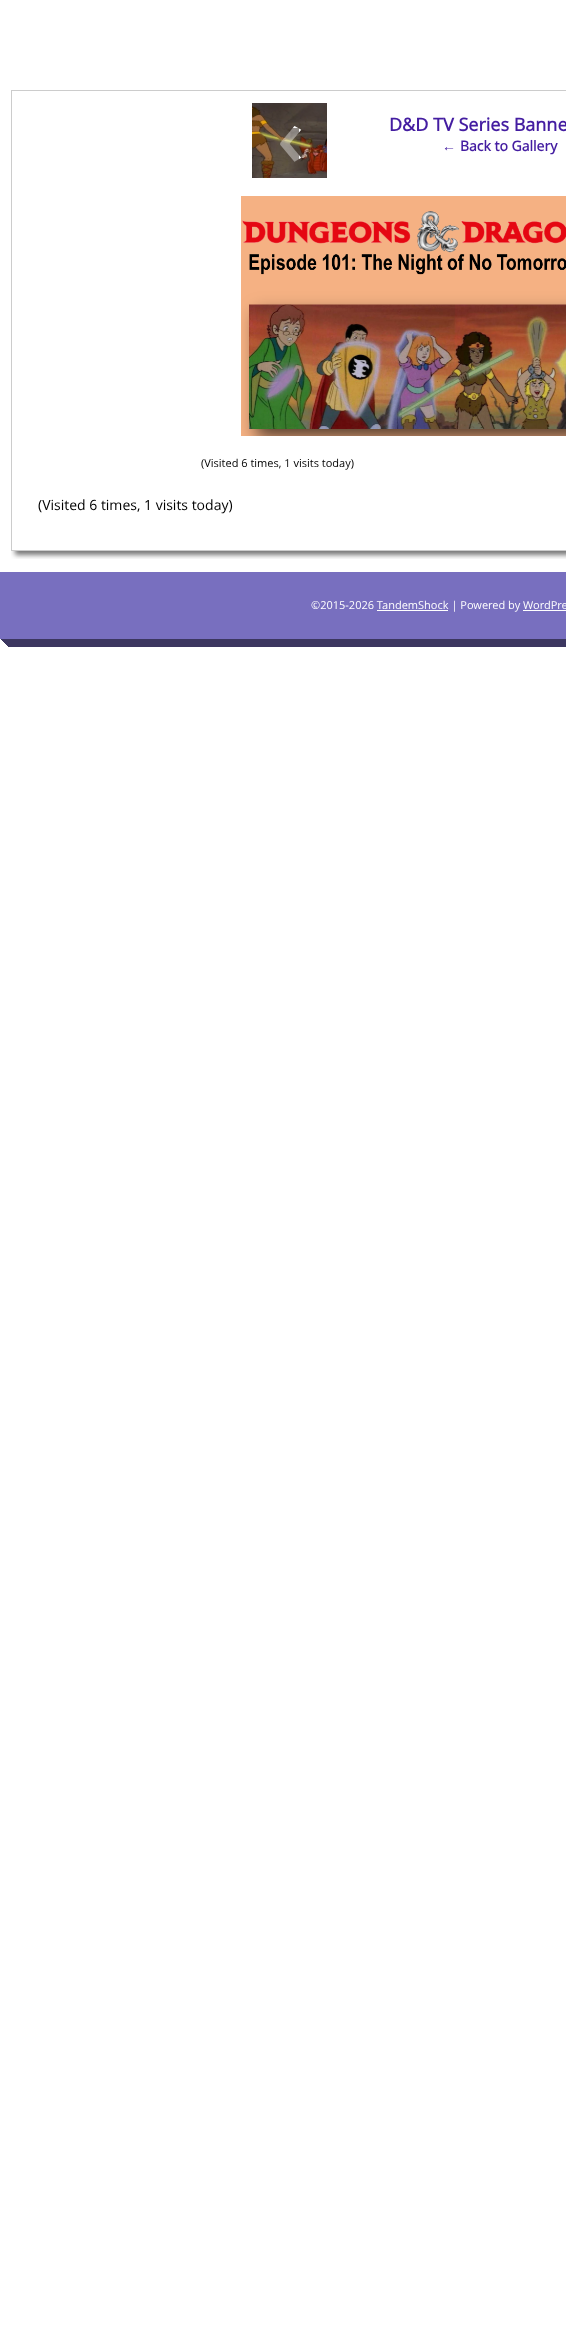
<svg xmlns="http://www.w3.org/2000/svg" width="566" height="2339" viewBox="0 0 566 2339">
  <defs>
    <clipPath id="clip1"><rect x="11" y="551" width="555" height="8"/></clipPath>
  </defs>
  <rect width="100%" height="100%" fill="rgb(255,255,255)"/>
  <g clip-path="url(#clip1)">
    <rect x="15" y="94" width="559" height="461" fill="rgba(0,0,0,0.53)" filter="blur(2.5px)"/>
  </g>
  <rect x="11.5" y="90.5" width="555" height="460" fill="none" stroke="rgb(204,204,204)"/>
  <image x="252" y="103" width="75" height="75" href="pic1.png"/>
  <text x="277" y="166" font-family="Open Sans" font-size="80" font-weight="bold" fill="rgb(255,255,255)">‹</text>
  <image x="280" y="128" width="19" height="34" href="pic2.png"/>
  <text x="389" y="131" font-family="Open Sans" font-size="18" font-weight="bold" fill="rgb(68,29,161)">D&amp;D TV Series Banne</text>
  <text x="442" y="151" font-family="Liberation Sans" font-size="14" font-weight="bold" fill="rgb(68,29,161)">←</text>
  <text x="460" y="151" font-family="Open Sans" font-size="14" font-weight="bold" fill="rgb(68,29,161)">Back to Gallery</text>
  <image x="241" y="196" width="325" height="240" href="pic3.png"/>
  <text x="201" y="467" font-family="Open Sans" font-size="11" fill="rgb(0,0,0)">(Visited 6 times, 1 visits today)</text>
  <text x="38" y="510" font-family="Open Sans" font-size="14" fill="rgb(0,0,0)">(Visited 6 times, 1 visits today)</text>
  <path d="M8 639V647H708V580H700V639Z" fill="rgb(60,55,96)"/>
  <path d="M7 639V646H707V579H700V639Z" fill="rgb(60,55,96)"/>
  <path d="M6 639V645H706V578H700V639Z" fill="rgb(60,55,96)"/>
  <path d="M5 639V644H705V577H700V639Z" fill="rgb(60,55,96)"/>
  <path d="M4 639V643H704V576H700V639Z" fill="rgb(60,55,96)"/>
  <path d="M3 639V642H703V575H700V639Z" fill="rgb(60,55,96)"/>
  <path d="M2 639V641H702V574H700V639Z" fill="rgb(60,55,96)"/>
  <path d="M1 639V640H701V573H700V639Z" fill="rgb(60,55,96)"/>
  <rect x="0" y="572" width="566" height="67" fill="rgb(120,111,191)"/>
  <text x="311" y="609" font-family="Open Sans" font-size="11" fill="rgb(255,255,255)">©2015-2026 TandemShock | Powered by WordPre</text>
  <rect x="377" y="610" width="71" height="1" fill="rgb(255,255,255)"/>
  <rect x="523" y="610" width="43" height="1" fill="rgb(255,255,255)"/>
</svg>
